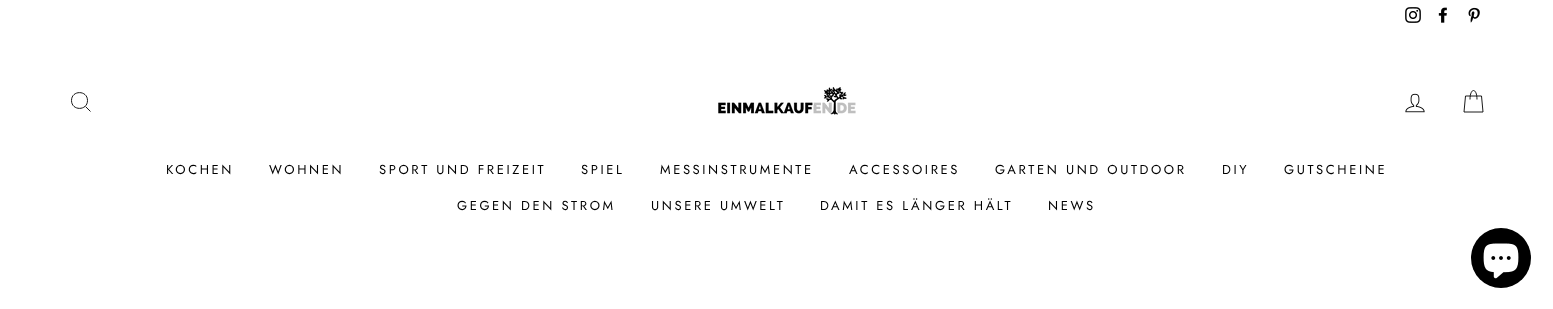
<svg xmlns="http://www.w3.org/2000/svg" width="1553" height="309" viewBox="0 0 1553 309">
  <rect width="100%" height="100%" fill="rgb(255,255,255)"/>
  <image x="1405" y="7" width="16" height="16" href="pic1.png"/>
  <image x="1438" y="7" width="9" height="16" href="pic2.png"/>
  <image x="1468" y="7" width="12" height="16" href="pic3.png"/>
  <path d="M87.5 100.5C87.5 111 71.5 111 71.5 100.5C71.5 90 87.5 90 87.5 100.5ZM90.5 111.5L85.5 106.5" fill="none" stroke="rgb(0,0,0)" stroke-width="0.9"/>
  <image x="718" y="87" width="138" height="28" href="pic4.png"/>
  <image x="1405" y="93" width="20" height="20" href="pic5.png"/>
  <path d="M1470 99.5C1470 87.5 1477 87.5 1477 99.5M1465.5 96H1481.5L1483 112H1464Z" fill="none" stroke="rgb(0,0,0)" stroke-width="0.9"/>
  <g font-family="Jost" font-size="13" letter-spacing="2.6" fill="rgb(0,0,0)">
    <text x="166" y="174">KOCHEN</text>
    <text x="269" y="174">WOHNEN</text>
    <text x="379" y="174">SPORT UND FREIZEIT</text>
    <text x="581" y="174">SPIEL</text>
    <text x="660" y="174">MESSINSTRUMENTE</text>
    <text x="849" y="174">ACCESSOIRES</text>
    <text x="995" y="174">GARTEN UND OUTDOOR</text>
    <text x="1222" y="174">DIY</text>
    <text x="1284" y="174">GUTSCHEINE</text>
    <text x="457" y="210">GEGEN DEN STROM</text>
    <text x="651" y="210">UNSERE UMWELT</text>
    <text x="820" y="210">DAMIT ES LÄNGER HÄLT</text>
    <text x="1048" y="210">NEWS</text>
  </g>
  <circle cx="1501" cy="258" r="30" fill="rgb(0,0,0)"/>
  <image x="1483" y="243" width="36" height="36" href="pic6.png"/>
</svg>
